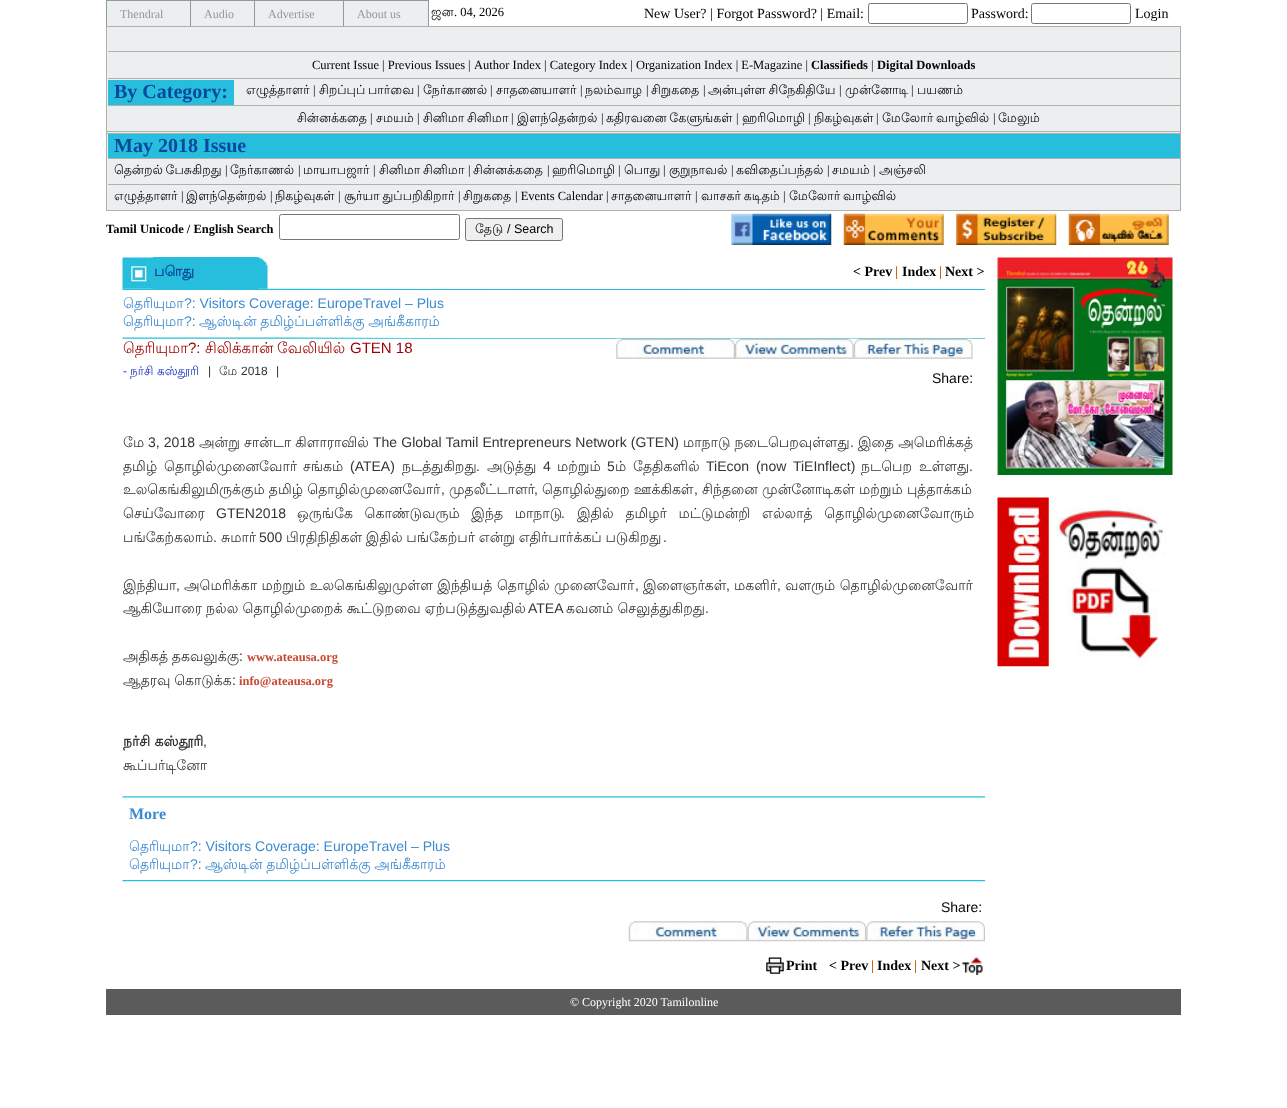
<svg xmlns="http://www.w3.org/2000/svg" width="1287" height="1108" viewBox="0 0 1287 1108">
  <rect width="100%" height="100%" fill="rgb(255,255,255)"/>
  <rect x="107" y="1" width="321" height="25" fill="rgb(235,239,240)"/>
  <rect x="106" y="0" width="323" height="1" fill="rgb(148,151,155)"/>
  <rect x="190" y="0" width="1" height="26" fill="rgb(148,151,155)"/>
  <rect x="106" y="0" width="1" height="26" fill="rgb(148,151,155)"/>
  <text x="120" y="18" font-family="Liberation Serif" font-size="12" fill="rgb(148,151,155)">Thendral</text>
  <rect x="254" y="0" width="1" height="26" fill="rgb(148,151,155)"/>
  <text x="204" y="18" font-family="Liberation Serif" font-size="12" fill="rgb(148,151,155)">Audio</text>
  <rect x="343" y="0" width="1" height="26" fill="rgb(148,151,155)"/>
  <text x="268" y="18" font-family="Liberation Serif" font-size="12" fill="rgb(148,151,155)">Advertise</text>
  <rect x="428" y="0" width="1" height="26" fill="rgb(148,151,155)"/>
  <text x="357" y="18" font-family="Liberation Serif" font-size="12" fill="rgb(148,151,155)">About us</text>
  <text x="431" y="16" font-family="Lohit Tamil" font-size="12.5" fill="rgb(0,0,0)">ஜன</text>
  <text x="454" y="16" font-family="Liberation Serif" font-size="12.5" fill="rgb(0,0,0)">. 04, 2026</text>
  <text x="644" y="18" font-family="Liberation Serif" font-size="14" fill="rgb(0,0,0)">New User? | Forgot Password? | Email:</text>
  <rect x="868.5" y="3.5" width="99" height="20" rx="2" fill="none" stroke="rgb(118,118,118)"/>
  <text x="971" y="18" font-family="Liberation Serif" font-size="14" fill="rgb(0,0,0)">Password:</text>
  <rect x="1031.5" y="3.5" width="99" height="20" rx="2" fill="none" stroke="rgb(118,118,118)"/>
  <text x="1135" y="18" font-family="Liberation Serif" font-size="14" fill="rgb(0,0,0)">Login</text>
  <rect x="107" y="27" width="1073" height="106" fill="rgb(235,239,240)"/>
  <rect x="106" y="26" width="1075" height="1" fill="rgb(176,176,176)"/>
  <rect x="108" y="51" width="1073" height="1" fill="rgb(176,176,176)"/>
  <rect x="108" y="78" width="1073" height="1" fill="rgb(176,176,176)"/>
  <rect x="108" y="105" width="1073" height="1" fill="rgb(176,176,176)"/>
  <rect x="1180" y="26" width="1" height="107" fill="rgb(176,176,176)"/>
  <rect x="106" y="131" width="1075" height="1" fill="rgb(176,176,176)"/>
  <rect x="106" y="26" width="1" height="107" fill="rgb(176,176,176)"/>
  <g font-family="Liberation Serif" font-size="12.5" fill="rgb(0,0,0)">
    <text x="312" y="69">Current Issue | Previous Issues</text>
    <text x="468" y="69">|</text>
    <text x="474" y="69">Author Index | Category Index | Organization Index | E-Magazine |</text>
  </g>
  <text x="811" y="69" font-family="Liberation Serif" font-size="12.5" font-weight="bold" fill="rgb(0,0,0)">Classifieds</text>
  <text x="871" y="69" font-family="Liberation Serif" font-size="12.5" fill="rgb(0,0,0)">|</text>
  <text x="877" y="69" font-family="Liberation Serif" font-size="12.5" font-weight="bold" fill="rgb(0,0,0)">Digital Downloads</text>
  <rect x="108" y="80" width="126" height="25" fill="rgb(39,190,221)"/>
  <text x="114" y="98" font-family="Liberation Serif" font-size="20" font-weight="bold" fill="rgb(8,73,157)">By Category:</text>
  <text x="246" y="94" font-family="Lohit Tamil" font-size="12.5" fill="rgb(0,0,0)">எழுத்தாளர்</text>
  <text x="313" y="94" font-family="Liberation Serif" font-size="12.5" fill="rgb(0,0,0)">|</text>
  <text x="319" y="94" word-spacing="-1" font-family="Lohit Tamil" font-size="12.5" fill="rgb(0,0,0)">சிறப்புப் பார்வை</text>
  <text x="417" y="94" font-family="Liberation Serif" font-size="12.5" fill="rgb(0,0,0)">|</text>
  <text x="423" y="94" font-family="Lohit Tamil" font-size="12.5" fill="rgb(0,0,0)">நேர்காணல்</text>
  <text x="490" y="94" font-family="Liberation Serif" font-size="12.5" fill="rgb(0,0,0)">|</text>
  <text x="496" y="94" font-family="Lohit Tamil" font-size="12.5" fill="rgb(0,0,0)">சாதனையாளர்</text>
  <text x="580" y="94" font-family="Liberation Serif" font-size="12.5" fill="rgb(0,0,0)">|</text>
  <text x="585" y="94" font-family="Lohit Tamil" font-size="12.5" fill="rgb(0,0,0)">நலம்வாழ</text>
  <text x="646" y="94" font-family="Liberation Serif" font-size="12.5" fill="rgb(0,0,0)">|</text>
  <text x="651" y="94" font-family="Lohit Tamil" font-size="12.5" fill="rgb(0,0,0)">சிறுகதை</text>
  <text x="703" y="94" font-family="Liberation Serif" font-size="12.5" fill="rgb(0,0,0)">|</text>
  <text x="708" y="94" word-spacing="-1" font-family="Lohit Tamil" font-size="12.5" fill="rgb(0,0,0)">அன்புள்ள சிநேகிதியே</text>
  <text x="839" y="94" font-family="Liberation Serif" font-size="12.5" fill="rgb(0,0,0)">|</text>
  <text x="845" y="94" font-family="Lohit Tamil" font-size="12.5" fill="rgb(0,0,0)">முன்னோடி</text>
  <text x="911" y="94" font-family="Liberation Serif" font-size="12.5" fill="rgb(0,0,0)">|</text>
  <g font-family="Lohit Tamil" font-size="12.5" fill="rgb(0,0,0)">
    <text x="917" y="94">பயணம்</text>
    <text x="297" y="122">சின்னக்கதை</text>
  </g>
  <text x="370" y="122" font-family="Liberation Serif" font-size="12.5" fill="rgb(0,0,0)">|</text>
  <text x="376" y="122" font-family="Lohit Tamil" font-size="12.5" fill="rgb(0,0,0)">சமயம்</text>
  <text x="417" y="122" font-family="Liberation Serif" font-size="12.5" fill="rgb(0,0,0)">|</text>
  <text x="423" y="122" word-spacing="-1" font-family="Lohit Tamil" font-size="12.5" fill="rgb(0,0,0)">சினிமா சினிமா</text>
  <text x="511" y="122" font-family="Liberation Serif" font-size="12.5" fill="rgb(0,0,0)">|</text>
  <text x="517" y="122" font-family="Lohit Tamil" font-size="12.5" fill="rgb(0,0,0)">இளந்தென்றல்</text>
  <text x="601" y="122" font-family="Liberation Serif" font-size="12.5" fill="rgb(0,0,0)">|</text>
  <text x="606" y="122" word-spacing="-1" font-family="Lohit Tamil" font-size="12.5" fill="rgb(0,0,0)">கதிரவனை கேளுங்கள்</text>
  <text x="736" y="122" font-family="Liberation Serif" font-size="12.5" fill="rgb(0,0,0)">|</text>
  <text x="742" y="122" font-family="Lohit Tamil" font-size="12.5" fill="rgb(0,0,0)">ஹரிமொழி</text>
  <text x="808" y="122" font-family="Liberation Serif" font-size="12.5" fill="rgb(0,0,0)">|</text>
  <text x="814" y="122" font-family="Lohit Tamil" font-size="12.5" fill="rgb(0,0,0)">நிகழ்வுகள்</text>
  <text x="876" y="122" font-family="Liberation Serif" font-size="12.5" fill="rgb(0,0,0)">|</text>
  <text x="882" y="122" word-spacing="-1" font-family="Lohit Tamil" font-size="12.5" fill="rgb(0,0,0)">மேலோர் வாழ்வில்</text>
  <text x="993" y="122" font-family="Liberation Serif" font-size="12.5" fill="rgb(0,0,0)">|</text>
  <text x="998" y="122" font-family="Lohit Tamil" font-size="12.5" fill="rgb(0,0,0)">மேலும்</text>
  <rect x="107" y="134" width="1073" height="76" fill="rgb(235,239,240)"/>
  <rect x="106" y="133" width="1075" height="1" fill="rgb(176,176,176)"/>
  <rect x="108" y="158" width="1073" height="1" fill="rgb(176,176,176)"/>
  <rect x="108" y="184" width="1073" height="1" fill="rgb(176,176,176)"/>
  <rect x="1180" y="133" width="1" height="78" fill="rgb(176,176,176)"/>
  <rect x="106" y="210" width="1075" height="1" fill="rgb(176,176,176)"/>
  <rect x="106" y="133" width="1" height="78" fill="rgb(176,176,176)"/>
  <rect x="108" y="134" width="1072" height="24" fill="rgb(39,190,221)"/>
  <text x="114" y="152" font-family="Liberation Serif" font-size="20" font-weight="bold" fill="rgb(8,73,157)">May 2018 Issue</text>
  <text x="114" y="174" word-spacing="-1" font-family="Lohit Tamil" font-size="12.5" fill="rgb(0,0,0)">தென்றல் பேசுகிறது</text>
  <text x="225" y="174" font-family="Liberation Serif" font-size="12.5" fill="rgb(0,0,0)">|</text>
  <text x="230" y="174" font-family="Lohit Tamil" font-size="12.5" fill="rgb(0,0,0)">நேர்காணல்</text>
  <text x="298" y="174" font-family="Liberation Serif" font-size="12.5" fill="rgb(0,0,0)">|</text>
  <text x="303" y="174" font-family="Lohit Tamil" font-size="12.5" fill="rgb(0,0,0)">மாயாபஜார்</text>
  <text x="373" y="174" font-family="Liberation Serif" font-size="12.5" fill="rgb(0,0,0)">|</text>
  <text x="379" y="174" word-spacing="-1" font-family="Lohit Tamil" font-size="12.5" fill="rgb(0,0,0)">சினிமா சினிமா</text>
  <text x="468" y="174" font-family="Liberation Serif" font-size="12.5" fill="rgb(0,0,0)">|</text>
  <text x="473" y="174" font-family="Lohit Tamil" font-size="12.5" fill="rgb(0,0,0)">சின்னக்கதை</text>
  <text x="547" y="174" font-family="Liberation Serif" font-size="12.5" fill="rgb(0,0,0)">|</text>
  <text x="552" y="174" font-family="Lohit Tamil" font-size="12.5" fill="rgb(0,0,0)">ஹரிமொழி</text>
  <text x="618" y="174" font-family="Liberation Serif" font-size="12.5" fill="rgb(0,0,0)">|</text>
  <text x="624" y="174" font-family="Lohit Tamil" font-size="12.5" fill="rgb(0,0,0)">பொது</text>
  <text x="663" y="174" font-family="Liberation Serif" font-size="12.5" fill="rgb(0,0,0)">|</text>
  <text x="669" y="174" font-family="Lohit Tamil" font-size="12.5" fill="rgb(0,0,0)">குறுநாவல்</text>
  <text x="731" y="174" font-family="Liberation Serif" font-size="12.5" fill="rgb(0,0,0)">|</text>
  <text x="736" y="174" font-family="Lohit Tamil" font-size="12.5" fill="rgb(0,0,0)">கவிதைப்பந்தல்</text>
  <text x="827" y="174" font-family="Liberation Serif" font-size="12.5" fill="rgb(0,0,0)">|</text>
  <text x="832" y="174" font-family="Lohit Tamil" font-size="12.5" fill="rgb(0,0,0)">சமயம்</text>
  <text x="873" y="174" font-family="Liberation Serif" font-size="12.5" fill="rgb(0,0,0)">|</text>
  <g font-family="Lohit Tamil" font-size="12.5" fill="rgb(0,0,0)">
    <text x="879" y="174">அஞ்சலி</text>
    <text x="114" y="200">எழுத்தாளர்</text>
  </g>
  <text x="181" y="200" font-family="Liberation Serif" font-size="12.5" fill="rgb(0,0,0)">|</text>
  <text x="186" y="200" font-family="Lohit Tamil" font-size="12.5" fill="rgb(0,0,0)">இளந்தென்றல்</text>
  <text x="270" y="200" font-family="Liberation Serif" font-size="12.5" fill="rgb(0,0,0)">|</text>
  <text x="275" y="200" font-family="Lohit Tamil" font-size="12.5" fill="rgb(0,0,0)">நிகழ்வுகள்</text>
  <text x="338" y="200" font-family="Liberation Serif" font-size="12.5" fill="rgb(0,0,0)">|</text>
  <text x="344" y="200" word-spacing="-1" font-family="Lohit Tamil" font-size="12.5" fill="rgb(0,0,0)">சூர்யா துப்பறிகிறார்</text>
  <text x="458" y="200" font-family="Liberation Serif" font-size="12.5" fill="rgb(0,0,0)">|</text>
  <text x="463" y="200" font-family="Lohit Tamil" font-size="12.5" fill="rgb(0,0,0)">சிறுகதை</text>
  <text x="515" y="200" font-family="Liberation Serif" font-size="12.5" fill="rgb(0,0,0)">| Events Calendar |</text>
  <text x="611" y="200" font-family="Lohit Tamil" font-size="12.5" fill="rgb(0,0,0)">சாதனையாளர்</text>
  <text x="695" y="200" font-family="Liberation Serif" font-size="12.5" fill="rgb(0,0,0)">|</text>
  <text x="701" y="200" word-spacing="-1" font-family="Lohit Tamil" font-size="12.5" fill="rgb(0,0,0)">வாசகர் கடிதம்</text>
  <text x="783" y="200" font-family="Liberation Serif" font-size="12.5" fill="rgb(0,0,0)">|</text>
  <text x="789" y="200" word-spacing="-1" font-family="Lohit Tamil" font-size="12.5" fill="rgb(0,0,0)">மேலோர் வாழ்வில்</text>
  <text x="106" y="233" font-family="Liberation Serif" font-size="12.5" font-weight="bold" fill="rgb(0,0,0)">Tamil Unicode / English Search</text>
  <rect x="279.5" y="214.5" width="180" height="25" rx="2" fill="none" stroke="rgb(118,118,118)"/>
  <rect x="465.5" y="218.5" width="97" height="22" rx="2" fill="rgb(239,239,239)" stroke="rgb(118,118,118)"/>
  <text x="475" y="233" font-family="Lohit Tamil" font-size="12.5" fill="rgb(0,0,0)">தேடு</text>
  <text x="507" y="233" font-family="Liberation Sans" font-size="12.5" fill="rgb(0,0,0)">/ Search</text>
  <image x="731" y="213" width="101" height="32" href="pic1.png"/>
  <image x="843" y="213" width="101" height="32" href="pic2.png"/>
  <image x="956" y="213" width="101" height="32" href="pic3.png"/>
  <image x="1068" y="213" width="101" height="32" href="pic4.png"/>
  <image x="122" y="257" width="31" height="32" href="pic5.png"/>
  <rect x="153" y="257" width="105" height="32" fill="rgb(39,190,221)"/>
  <text x="154" y="276" font-family="Lohit Tamil" font-size="14" font-weight="bold" fill="rgb(8,73,157)">பொது</text>
  <image x="257" y="257" width="11" height="32" href="pic6.png"/>
  <text x="853" y="276" font-family="Liberation Serif" font-size="14" font-weight="bold" fill="rgb(0,0,0)">&lt; Prev</text>
  <text x="895" y="276" font-family="Liberation Serif" font-size="14" font-weight="bold" fill="rgb(209,98,0)">|</text>
  <text x="902" y="276" font-family="Liberation Serif" font-size="14" font-weight="bold" fill="rgb(0,0,0)">Index</text>
  <text x="939" y="276" font-family="Liberation Serif" font-size="14" font-weight="bold" fill="rgb(209,98,0)">|</text>
  <text x="945" y="276" font-family="Liberation Serif" font-size="14" font-weight="bold" fill="rgb(0,0,0)">Next &gt;</text>
  <image x="122" y="288" width="863" height="2" href="pic7.png"/>
  <text x="123" y="308" font-family="Lohit Tamil" font-size="14" fill="rgb(60,138,208)">தெரியுமா</text>
  <text x="184" y="308" font-family="Liberation Sans" font-size="14" fill="rgb(60,138,208)">?: Visitors Coverage: EuropeTravel – Plus</text>
  <text x="123" y="326" font-family="Lohit Tamil" font-size="14" fill="rgb(60,138,208)">தெரியுமா</text>
  <text x="184" y="326" font-family="Liberation Sans" font-size="14" fill="rgb(60,138,208)">?:</text>
  <text x="199" y="326" word-spacing="-0.5" font-family="Lohit Tamil" font-size="14" fill="rgb(60,138,208)">ஆஸ்டின் தமிழ்ப்பள்ளிக்கு அங்கீகாரம்</text>
  <image x="122" y="337" width="863" height="2" href="pic8.png"/>
  <text x="123" y="353" font-family="Lohit Tamil" font-size="15" fill="rgb(158,0,0)">தெரியுமா</text>
  <text x="188" y="353" font-family="Liberation Sans" font-size="15" fill="rgb(158,0,0)">?:</text>
  <g font-family="Lohit Tamil" font-size="15" fill="rgb(158,0,0)">
    <text x="205" y="353">சிலிக்கான்</text>
    <text x="277" y="353">வேலியில்</text>
  </g>
  <text x="350" y="353" font-family="Liberation Sans" font-size="15" fill="rgb(158,0,0)">GTEN 18</text>
  <image x="616" y="338" width="119" height="21" href="pic9.png"/>
  <image x="735" y="338" width="119" height="21" href="pic10.png"/>
  <image x="853" y="338" width="120" height="21" href="pic11.png"/>
  <text x="123" y="375" font-family="Liberation Sans" font-size="12" fill="rgb(19,47,191)">-</text>
  <text x="130" y="375" font-family="Lohit Tamil" font-size="12" fill="rgb(19,47,191)">நர்சி கஸ்தூரி</text>
  <text x="208" y="375" font-family="Liberation Sans" font-size="12" fill="rgb(51,51,51)">|</text>
  <text x="219" y="375" font-family="Lohit Tamil" font-size="12" fill="rgb(51,51,51)">மே</text>
  <g font-family="Liberation Sans" font-size="12" fill="rgb(51,51,51)">
    <text x="241" y="375">2018</text>
    <text x="276" y="375">|</text>
  </g>
  <text x="932" y="383" font-family="Liberation Sans" font-size="14" fill="rgb(0,0,0)">Share:</text>
  <text x="123" y="447" font-family="Lohit Tamil" font-size="14" fill="rgb(51,51,51)">மே</text>
  <text x="148" y="447" word-spacing="0.25" font-family="Liberation Sans" font-size="14" fill="rgb(51,51,51)">3, 2018</text>
  <text x="199" y="447" font-family="Lohit Tamil" font-size="14" fill="rgb(51,51,51)">அன்று சான்டா கிளாராவில்</text>
  <text x="373" y="447" word-spacing="0.25" font-family="Liberation Sans" font-size="14" fill="rgb(51,51,51)">The Global Tamil Entrepreneurs Network (GTEN)</text>
  <text x="683" y="447" font-family="Lohit Tamil" font-size="14" fill="rgb(51,51,51)">மாநாடு நடைபெறவுள்ளது</text>
  <text x="850" y="447" font-family="Liberation Sans" font-size="14" fill="rgb(51,51,51)">.</text>
  <g font-family="Lohit Tamil" font-size="14" fill="rgb(51,51,51)">
    <text x="858" y="447">இதை அமெரிக்கத்</text>
    <text x="123" y="471">தமிழ்</text>
    <text x="164" y="471">தொழில்முனைவோர்</text>
    <text x="303" y="471">சங்கம்</text>
  </g>
  <text x="350" y="471" font-family="Liberation Sans" font-size="14" fill="rgb(51,51,51)">(ATEA)</text>
  <text x="402" y="471" font-family="Lohit Tamil" font-size="14" fill="rgb(51,51,51)">நடத்துகிறது</text>
  <text x="476" y="471" font-family="Liberation Sans" font-size="14" fill="rgb(51,51,51)">.</text>
  <text x="487" y="471" font-family="Lohit Tamil" font-size="14" fill="rgb(51,51,51)">அடுத்து</text>
  <text x="543" y="471" font-family="Liberation Sans" font-size="14" fill="rgb(51,51,51)">4</text>
  <text x="557" y="471" font-family="Lohit Tamil" font-size="14" fill="rgb(51,51,51)">மற்றும்</text>
  <text x="607" y="471" font-family="Liberation Sans" font-size="14" fill="rgb(51,51,51)">5</text>
  <g font-family="Lohit Tamil" font-size="14" fill="rgb(51,51,51)">
    <text x="615" y="471">ம்</text>
    <text x="633" y="471">தேதிகளில்</text>
  </g>
  <text x="706" y="471" word-spacing="3" font-family="Liberation Sans" font-size="14" fill="rgb(51,51,51)">TiEcon (now TiEInflect)</text>
  <g font-family="Lohit Tamil" font-size="14" fill="rgb(51,51,51)">
    <text x="861" y="471">நடபெற</text>
    <text x="919" y="471">உள்ளது</text>
  </g>
  <text x="969" y="471" font-family="Liberation Sans" font-size="14" fill="rgb(51,51,51)">.</text>
  <text x="123" y="494" font-family="Lohit Tamil" font-size="14" fill="rgb(51,51,51)">உலகெங்கிலுமிருக்கும் தமிழ் தொழில்முனைவோர்</text>
  <text x="441" y="494" font-family="Liberation Sans" font-size="14" fill="rgb(51,51,51)">,</text>
  <text x="449" y="494" font-family="Lohit Tamil" font-size="14" fill="rgb(51,51,51)">முதலீட்டாளர்</text>
  <text x="534" y="494" font-family="Liberation Sans" font-size="14" fill="rgb(51,51,51)">,</text>
  <text x="542" y="494" font-family="Lohit Tamil" font-size="14" fill="rgb(51,51,51)">தொழில்துறை ஊக்கிகள்</text>
  <text x="694" y="494" font-family="Liberation Sans" font-size="14" fill="rgb(51,51,51)">,</text>
  <g font-family="Lohit Tamil" font-size="14" fill="rgb(51,51,51)">
    <text x="702" y="494">சிந்தனை முன்னோடிகள் மற்றும் புத்தாக்கம்</text>
    <text x="123" y="518">செய்வோரை</text>
  </g>
  <text x="216" y="518" font-family="Liberation Sans" font-size="14" fill="rgb(51,51,51)">GTEN2018</text>
  <text x="297" y="518" word-spacing="7.5" font-family="Lohit Tamil" font-size="14" fill="rgb(51,51,51)">ஒருங்கே கொண்டுவரும் இந்த மாநாடு</text>
  <text x="561" y="518" font-family="Liberation Sans" font-size="14" fill="rgb(51,51,51)">.</text>
  <g font-family="Lohit Tamil" font-size="14" fill="rgb(51,51,51)">
    <text x="577" y="518" word-spacing="7.5">இதில் தமிழர் மட்டுமன்றி எல்லாத் தொழில்முனைவோரும்</text>
    <text x="123" y="542">பங்கேற்கலாம்</text>
  </g>
  <text x="213" y="542" font-family="Liberation Sans" font-size="14" fill="rgb(51,51,51)">.</text>
  <text x="221" y="542" font-family="Lohit Tamil" font-size="14" fill="rgb(51,51,51)">சுமார்</text>
  <text x="259" y="542" font-family="Liberation Sans" font-size="14" fill="rgb(51,51,51)">500</text>
  <text x="286" y="542" word-spacing="-0.5" font-family="Lohit Tamil" font-size="14" fill="rgb(51,51,51)">பிரதிநிதிகள் இதில் பங்கேற்பர் என்று எதிர்பார்க்கப் படுகிறது</text>
  <text x="663" y="542" font-family="Liberation Sans" font-size="14" fill="rgb(51,51,51)">.</text>
  <text x="123" y="590" font-family="Lohit Tamil" font-size="14" fill="rgb(51,51,51)">இந்தியா</text>
  <text x="176" y="590" font-family="Liberation Sans" font-size="14" fill="rgb(51,51,51)">,</text>
  <text x="184" y="590" word-spacing="0.25" font-family="Lohit Tamil" font-size="14" fill="rgb(51,51,51)">அமெரிக்கா மற்றும் உலகெங்கிலுமுள்ள இந்தியத் தொழில் முனைவோர்</text>
  <text x="635" y="590" font-family="Liberation Sans" font-size="14" fill="rgb(51,51,51)">,</text>
  <text x="643" y="590" font-family="Lohit Tamil" font-size="14" fill="rgb(51,51,51)">இளைஞர்கள்</text>
  <text x="726" y="590" font-family="Liberation Sans" font-size="14" fill="rgb(51,51,51)">,</text>
  <text x="734" y="590" font-family="Lohit Tamil" font-size="14" fill="rgb(51,51,51)">மகளிர்</text>
  <text x="777" y="590" font-family="Liberation Sans" font-size="14" fill="rgb(51,51,51)">,</text>
  <g font-family="Lohit Tamil" font-size="14" fill="rgb(51,51,51)">
    <text x="785" y="590" word-spacing="0.25">வளரும் தொழில்முனைவோர்</text>
    <text x="123" y="613">ஆகியோரை நல்ல தொழில்முறைக் கூட்டுறவை ஏற்படுத்துவதில்</text>
  </g>
  <text x="528" y="613" font-family="Liberation Sans" font-size="14" fill="rgb(51,51,51)">ATEA</text>
  <text x="566" y="613" font-family="Lohit Tamil" font-size="14" fill="rgb(51,51,51)">கவனம் செலுத்துகிறது</text>
  <text x="705" y="613" font-family="Liberation Sans" font-size="14" fill="rgb(51,51,51)">.</text>
  <text x="123" y="661" word-spacing="-0.5" font-family="Lohit Tamil" font-size="14" fill="rgb(51,51,51)">அதிகத் தகவலுக்கு</text>
  <text x="239" y="661" font-family="Liberation Sans" font-size="14" fill="rgb(51,51,51)">:</text>
  <text x="247" y="661" font-family="Liberation Serif" font-size="12.5" font-weight="bold" fill="rgb(198,73,52)">www.ateausa.org</text>
  <text x="123" y="685" word-spacing="-0.5" font-family="Lohit Tamil" font-size="14" fill="rgb(51,51,51)">ஆதரவு கொடுக்க</text>
  <text x="232" y="685" font-family="Liberation Sans" font-size="14" fill="rgb(51,51,51)">:</text>
  <text x="239" y="685" font-family="Liberation Serif" font-size="12.5" font-weight="bold" fill="rgb(198,73,52)">info@ateausa.org</text>
  <text x="123" y="746" font-family="Lohit Tamil" font-size="14" font-weight="bold" fill="rgb(51,51,51)">நர்சி கஸ்தூரி</text>
  <text x="203" y="746" font-family="Liberation Sans" font-size="14" fill="rgb(51,51,51)">,</text>
  <text x="123" y="770" font-family="Lohit Tamil" font-size="14" fill="rgb(51,51,51)">கூப்பர்டினோ</text>
  <image x="122" y="796" width="863" height="2" href="pic12.png"/>
  <text x="129" y="819" font-family="Liberation Serif" font-size="16" font-weight="bold" fill="rgb(60,138,208)">More</text>
  <text x="129" y="851" font-family="Lohit Tamil" font-size="14" fill="rgb(60,138,208)">தெரியுமா</text>
  <text x="190" y="851" font-family="Liberation Sans" font-size="14" fill="rgb(60,138,208)">?: Visitors Coverage: EuropeTravel – Plus</text>
  <text x="129" y="869" font-family="Lohit Tamil" font-size="14" fill="rgb(60,138,208)">தெரியுமா</text>
  <text x="190" y="869" font-family="Liberation Sans" font-size="14" fill="rgb(60,138,208)">?:</text>
  <text x="205" y="869" word-spacing="-0.5" font-family="Lohit Tamil" font-size="14" fill="rgb(60,138,208)">ஆஸ்டின் தமிழ்ப்பள்ளிக்கு அங்கீகாரம்</text>
  <image x="122" y="880" width="863" height="2" href="pic13.png"/>
  <text x="941" y="912" font-family="Liberation Sans" font-size="14" fill="rgb(0,0,0)">Share:</text>
  <image x="628" y="921" width="120" height="21" href="pic14.png"/>
  <image x="747" y="921" width="120" height="21" href="pic15.png"/>
  <image x="866" y="921" width="119" height="21" href="pic16.png"/>
  <image x="766" y="957" width="18" height="17" href="pic17.png"/>
  <g font-family="Liberation Serif" font-size="14" font-weight="bold" fill="rgb(0,0,0)">
    <text x="786" y="970">Print</text>
    <text x="829" y="970">&lt; Prev</text>
  </g>
  <text x="871" y="970" font-family="Liberation Serif" font-size="14" font-weight="bold" fill="rgb(209,98,0)">|</text>
  <text x="877" y="970" font-family="Liberation Serif" font-size="14" font-weight="bold" fill="rgb(0,0,0)">Index</text>
  <text x="914" y="970" font-family="Liberation Serif" font-size="14" font-weight="bold" fill="rgb(209,98,0)">|</text>
  <text x="921" y="970" font-family="Liberation Serif" font-size="14" font-weight="bold" fill="rgb(0,0,0)">Next &gt;</text>
  <image x="962" y="957" width="21" height="18" href="pic18.png"/>
  <image x="997" y="257" width="176" height="218" href="pic19.png"/>
  <image x="997" y="497" width="169" height="170" href="pic20.png"/>
  <rect x="106" y="989" width="1075" height="26" fill="rgb(91,91,91)"/>
  <text x="570" y="1006" font-family="Liberation Serif" font-size="12" fill="rgb(255,255,255)">© Copyright 2020 Tamilonline</text>
</svg>
